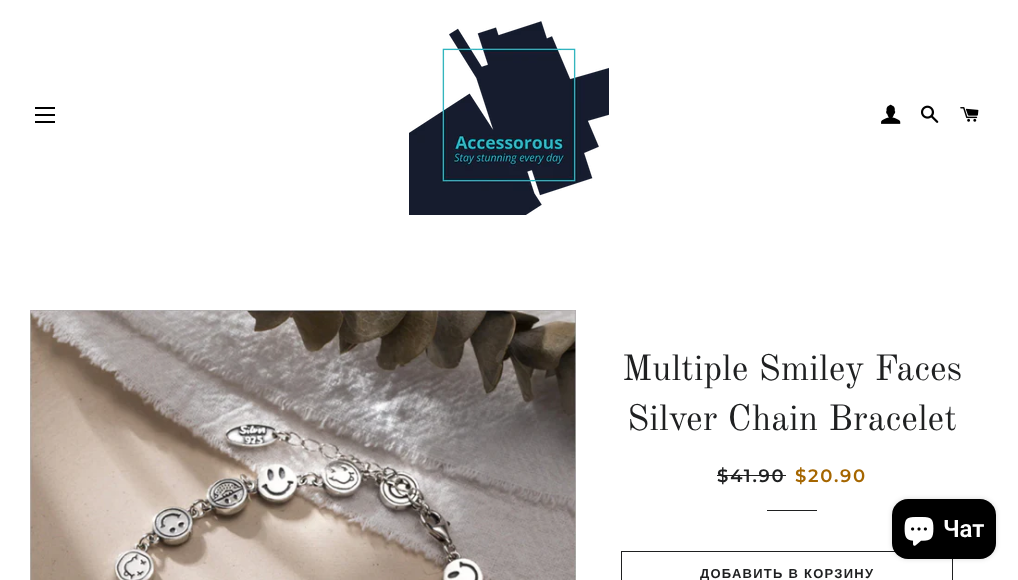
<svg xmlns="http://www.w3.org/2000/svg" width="1018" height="580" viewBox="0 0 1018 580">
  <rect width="100%" height="100%" fill="rgb(255,255,255)"/>
  <rect x="35" y="107" width="20" height="2" fill="rgb(0,0,0)"/>
  <rect x="35" y="114" width="20" height="2" fill="rgb(0,0,0)"/>
  <rect x="35" y="121" width="20" height="2" fill="rgb(0,0,0)"/>
  <image x="409" y="21" width="200" height="194" href="pic1.png"/>
  <image x="881" y="104" width="20" height="20" href="pic2.png"/>
  <image x="921" y="105" width="18" height="18" href="pic3.png"/>
  <image x="960" y="107" width="19" height="15" href="pic4.png"/>
  <image x="30" y="310" width="546" height="270" href="pic5.png"/>
  <g font-family="Old Standard TT" font-size="36" fill="rgb(31,32,33)">
    <text x="622" y="380">Multiple Smiley Faces</text>
    <text x="627" y="430">Silver Chain Bracelet</text>
  </g>
  <text x="717" y="482" font-family="Montserrat" font-size="18" font-weight="600" letter-spacing="1.75" fill="rgb(31,32,33)">$41.90</text>
  <rect x="717" y="475" width="69" height="1" fill="rgb(31,32,33)"/>
  <text x="795" y="482" font-family="Montserrat" font-size="18" font-weight="600" letter-spacing="1.75" fill="rgb(165,102,0)">$20.90</text>
  <rect x="767" y="510" width="50" height="1" fill="rgb(31,32,33)"/>
  <rect x="621.5" y="551.5" width="331" height="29" fill="none" stroke="rgb(31,32,33)"/>
  <text x="700" y="578" font-family="Liberation Sans" font-size="13" font-weight="bold" letter-spacing="1.25" fill="rgb(31,32,33)">ДОБАВИТЬ В КОРЗИНУ</text>
  <rect x="892" y="499" width="104" height="60" rx="16" fill="rgba(0,0,0,0.15)" filter="blur(2.5px)"/>
  <rect x="892" y="499" width="104" height="60" rx="16" fill="rgb(0,0,0)"/>
  <image x="904" y="517" width="30" height="29" href="pic6.png"/>
  <text x="943" y="537" font-family="Roboto" font-size="24" font-weight="600" fill="rgb(255,255,255)">Чат</text>
</svg>
